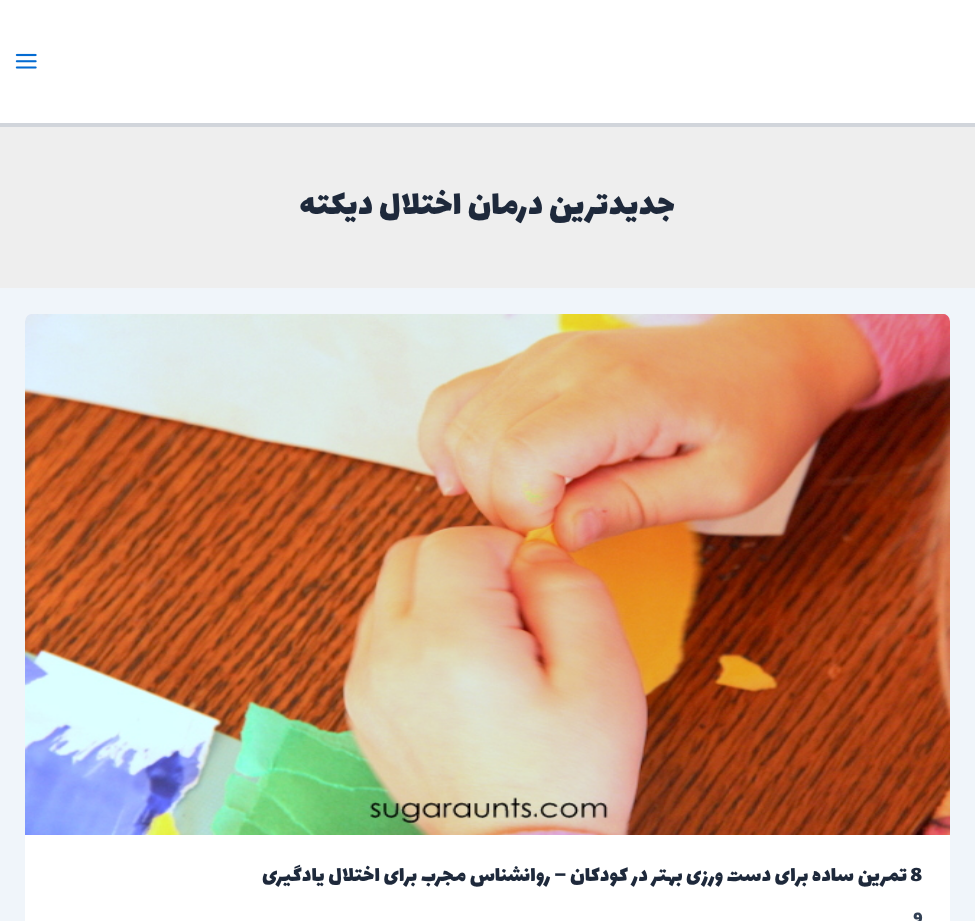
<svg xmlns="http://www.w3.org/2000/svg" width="975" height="921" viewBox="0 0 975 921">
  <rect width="100%" height="100%" fill="rgb(240,245,250)"/>
  <rect x="0" y="0" width="975" height="123" fill="rgb(255,255,255)"/>
  <rect x="0" y="123" width="975" height="4" fill="rgb(209,213,219)"/>
  <image x="15" y="53" width="22" height="16" href="pic1.png"/>
  <rect x="0" y="127" width="975" height="161" fill="rgb(238,238,238)"/>
  <text x="675" y="214" font-family="Lalezar" font-size="36.5" direction="rtl" fill="rgb(30,41,59)">جدیدترین درمان اختلال دیکته</text>
  <rect x="25" y="314" width="925" height="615" rx="8" fill="rgb(255,255,255)"/>
  <image x="25" y="314" width="925" height="521" href="pic2.png"/>
  <text x="910" y="881" font-family="Lalezar" font-size="22.8" fill="rgb(30,41,59)">8</text>
  <text x="907" y="881" font-family="Lalezar" font-size="22.8" direction="rtl" fill="rgb(30,41,59)">تمرین ساده برای دست ورزی بهتر در کودکان – روانشناس مجرب برای اختلال یادگیری</text>
  <text x="913" y="923" font-family="Lalezar" font-size="18" fill="rgb(51,65,85)">9</text>
</svg>
